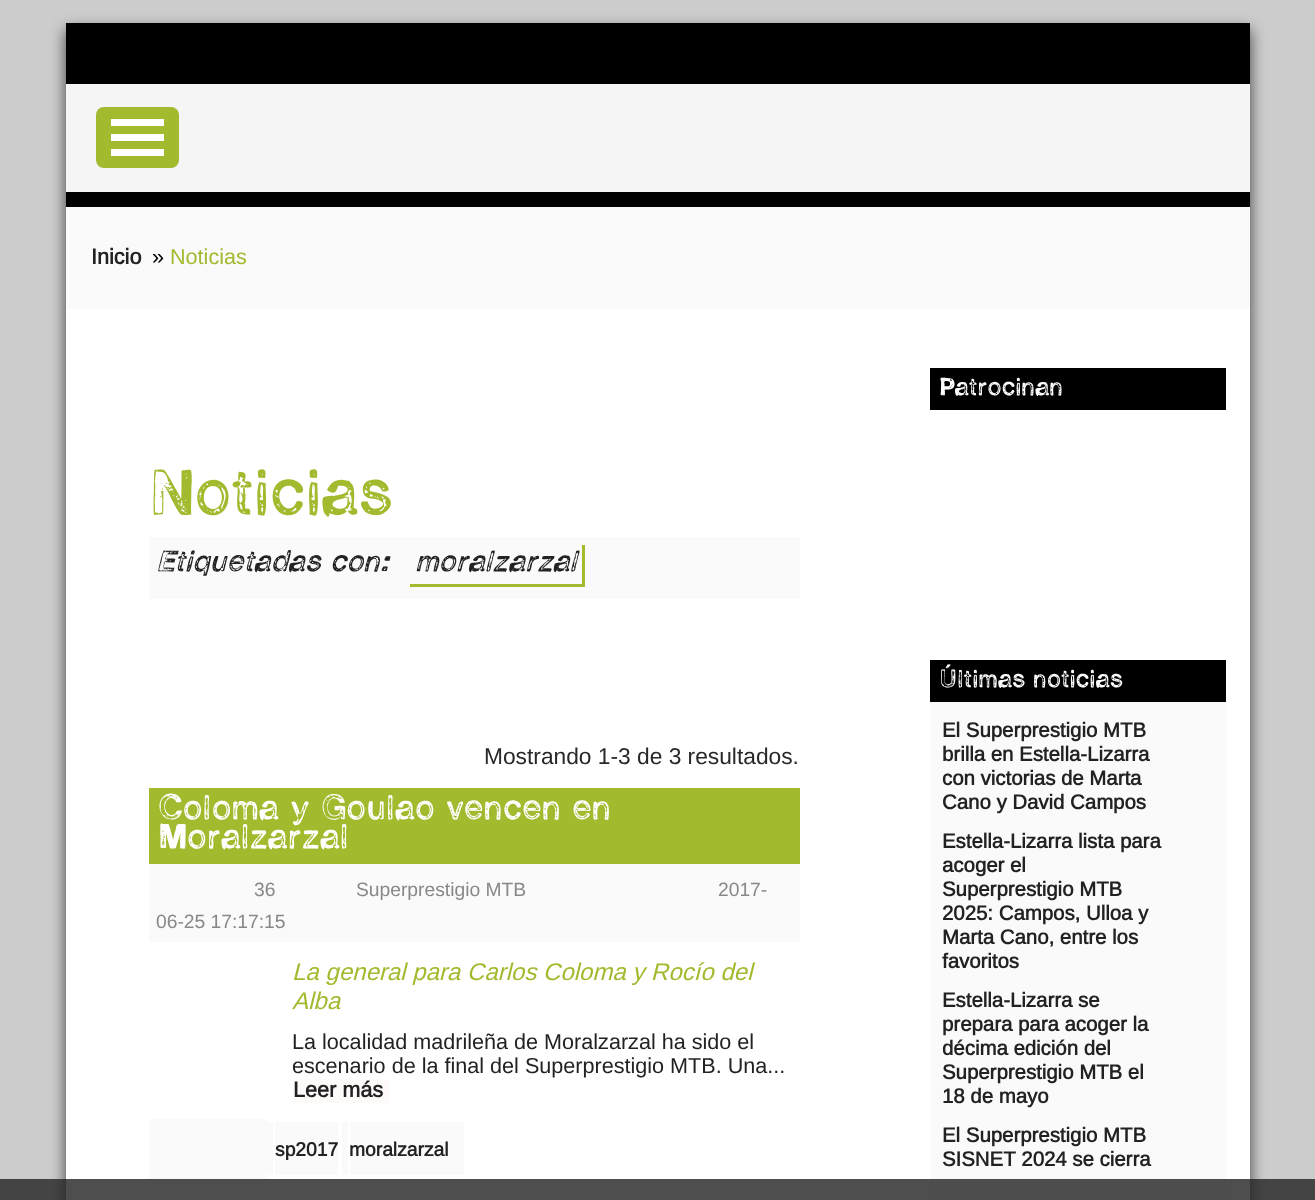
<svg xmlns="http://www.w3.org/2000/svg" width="1315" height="1200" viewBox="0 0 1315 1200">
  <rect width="100%" height="100%" fill="rgb(204,204,204)"/>
  <rect x="66" y="30" width="1184" height="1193" fill="rgba(0,0,0,0.7)" filter="blur(7.5px)"/>
  <rect x="66" y="23" width="1184" height="184" fill="rgb(0,0,0)"/>
  <rect x="66" y="84" width="1184" height="108" fill="rgb(245,245,245)"/>
  <rect x="96" y="107" width="83" height="61" rx="8" fill="rgb(161,186,46)"/>
  <rect x="111" y="119" width="53" height="7" fill="rgb(255,255,255)"/>
  <rect x="111" y="134" width="53" height="7" fill="rgb(255,255,255)"/>
  <rect x="111" y="149" width="53" height="7" fill="rgb(255,255,255)"/>
  <rect x="66" y="309" width="1184" height="891" fill="rgb(255,255,255)"/>
  <rect x="66" y="207" width="1184" height="102" fill="rgb(250,250,250)"/>
  <text x="91" y="264" font-family="Liberation Sans" font-size="21.6" font-weight="bold" fill="rgb(34,34,34)">Inicio</text>
  <text x="152" y="264" font-family="Liberation Sans" font-size="21.6" fill="rgb(0,0,0)">»</text>
  <text x="170" y="264" font-family="Liberation Sans" font-size="21.6" fill="rgb(161,186,46)">Noticias</text>
  <text x="149" y="514" font-family="'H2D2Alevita'" font-size="62.5" fill="rgb(161,186,46)">Noticias</text>
  <rect x="149" y="537" width="651" height="62" fill="rgb(250,250,250)"/>
  <text x="156" y="571" font-family="'H2D2Alevita'" font-size="28.75" font-style="italic" fill="rgb(34,34,34)">Etiquetadas con:</text>
  <rect x="582" y="545" width="3" height="42" fill="rgb(161,186,46)"/>
  <rect x="410" y="584" width="175" height="3" fill="rgb(161,186,46)"/>
  <text x="415" y="571" font-family="'H2D2Alevita'" font-size="28.75" font-style="italic" fill="rgb(34,34,34)">moralzarzal</text>
  <text x="484" y="764" font-family="Liberation Sans" font-size="22.75" fill="rgb(40,40,40)">Mostrando 1-3 de 3 resultados.</text>
  <rect x="149" y="788" width="651" height="76" fill="rgb(161,186,46)"/>
  <g font-family="'H2D2Alevita'" font-size="33.6" fill="rgb(255,255,255)">
    <text>
      <tspan x="158" y="819">Coloma y Goulao vencen en</tspan>
      <tspan x="158" y="848">Moralzarzal</tspan>
    </text>
  </g>
  <rect x="149" y="864" width="651" height="78" fill="rgb(250,250,250)"/>
  <g font-family="Liberation Sans" font-size="19.25" fill="rgb(136,136,136)">
    <text x="254" y="896">36</text>
    <text x="356" y="896">Superprestigio MTB</text>
    <text x="718" y="896">2017-</text>
    <text x="156" y="928">06-25 17:17:15</text>
  </g>
  <g font-family="Liberation Sans" font-size="24" font-style="italic" fill="rgb(161,186,46)">
    <text>
      <tspan x="292" y="980">La general para Carlos Coloma y Rocío del</tspan>
      <tspan x="292" y="1009">Alba</tspan>
    </text>
  </g>
  <g font-family="Liberation Sans" font-size="21.6" fill="rgb(34,34,34)">
    <text>
      <tspan x="292" y="1049">La localidad madrileña de Moralzarzal ha sido el</tspan>
      <tspan x="292" y="1073">escenario de la final del Superprestigio MTB. Una...</tspan>
    </text>
  </g>
  <rect x="293" y="1079" width="96" height="24" fill="rgb(254,250,250)"/>
  <text x="293" y="1097" font-family="Liberation Sans" font-size="21.6" font-weight="bold" fill="rgb(34,34,34)">Leer más</text>
  <rect x="275" y="1122" width="63" height="53" fill="rgb(250,250,250)"/>
  <text x="275" y="1156" font-family="Liberation Sans" font-size="19.25" font-weight="bold" fill="rgb(34,34,34)">sp2017</text>
  <rect x="149" y="1119" width="118" height="62" fill="rgb(250,250,250)"/>
  <rect x="267" y="1122" width="6" height="53" fill="rgb(250,250,250)"/>
  <rect x="350" y="1122" width="114" height="53" fill="rgb(250,250,250)"/>
  <text x="349" y="1156" font-family="Liberation Sans" font-size="19.25" font-weight="bold" fill="rgb(34,34,34)">moralzarzal</text>
  <rect x="342" y="1122" width="6" height="53" fill="rgb(250,250,250)"/>
  <rect x="930" y="368" width="296" height="42" fill="rgb(0,0,0)"/>
  <text x="939" y="395" font-family="'H2D2Alevita'" font-size="24" fill="rgb(255,255,255)">Patrocinan</text>
  <rect x="930" y="660" width="296" height="42" fill="rgb(0,0,0)"/>
  <text x="939" y="687" font-family="'H2D2Alevita'" font-size="24" fill="rgb(255,255,255)">Últimas noticias</text>
  <rect x="930" y="702" width="296" height="498" fill="rgb(250,250,250)"/>
  <path d="M937.5 820H1165.5" fill="none" stroke="rgb(254,250,250)" stroke-width="1.5" stroke-dasharray="4.5 2.96"/>
  <g font-family="Liberation Sans" font-size="20.4" font-weight="bold" fill="rgb(34,34,34)">
    <text>
      <tspan x="942" y="737">El Superprestigio MTB</tspan>
      <tspan x="942" y="761">brilla en Estella-Lizarra</tspan>
      <tspan x="942" y="785">con victorias de Marta</tspan>
      <tspan x="942" y="809">Cano y David Campos</tspan>
    </text>
  </g>
  <path d="M937.5 979H1165.5" fill="none" stroke="rgb(254,250,250)" stroke-width="1.5" stroke-dasharray="4.5 2.96"/>
  <g font-family="Liberation Sans" font-size="20.4" font-weight="bold" fill="rgb(34,34,34)">
    <text>
      <tspan x="942" y="848">Estella-Lizarra lista para</tspan>
      <tspan x="942" y="872">acoger el</tspan>
      <tspan x="942" y="896">Superprestigio MTB</tspan>
      <tspan x="942" y="920">2025: Campos, Ulloa y</tspan>
      <tspan x="942" y="944">Marta Cano, entre los</tspan>
      <tspan x="942" y="968">favoritos</tspan>
    </text>
  </g>
  <path d="M937.5 1114H1165.5" fill="none" stroke="rgb(254,250,250)" stroke-width="1.5" stroke-dasharray="4.5 2.96"/>
  <g font-family="Liberation Sans" font-size="20.4" font-weight="bold" fill="rgb(34,34,34)">
    <text>
      <tspan x="942" y="1007">Estella-Lizarra se</tspan>
      <tspan x="942" y="1031">prepara para acoger la</tspan>
      <tspan x="942" y="1055">décima edición del</tspan>
      <tspan x="942" y="1079">Superprestigio MTB el</tspan>
      <tspan x="942" y="1103">18 de mayo</tspan>
      <tspan x="942" y="1142">El Superprestigio MTB</tspan>
      <tspan x="942" y="1166">SISNET 2024 se cierra</tspan>
    </text>
  </g>
  <rect x="0" y="1179" width="1315" height="21" fill="rgba(34,34,34,0.8)"/>
</svg>
